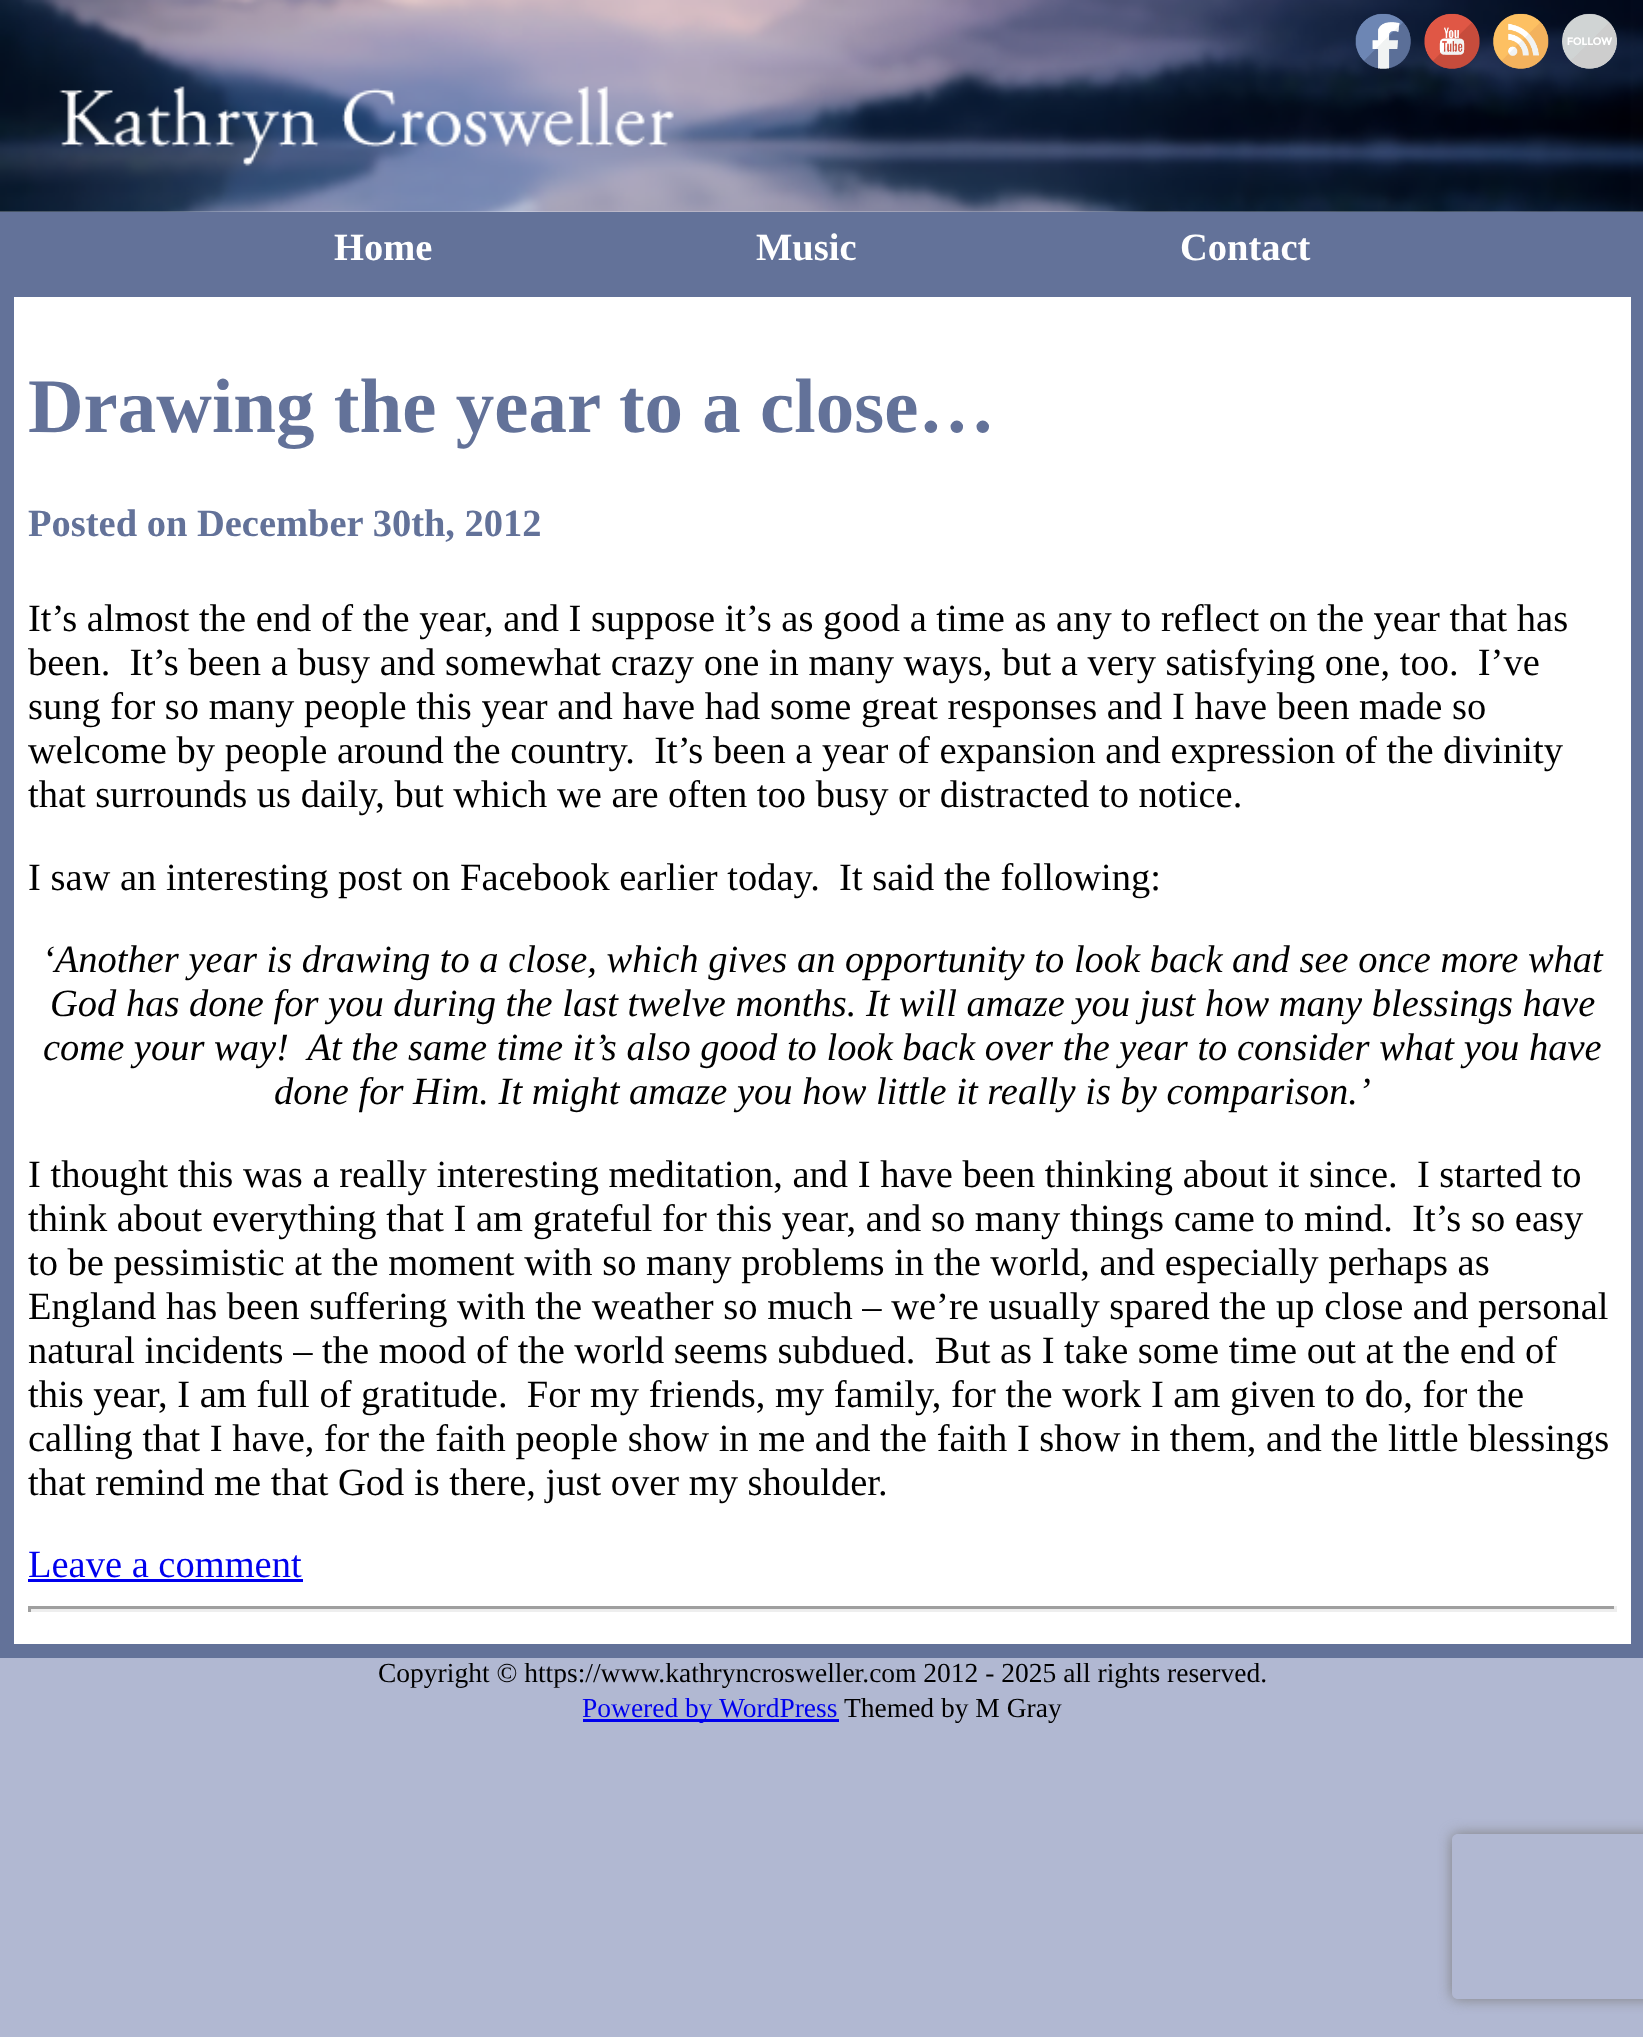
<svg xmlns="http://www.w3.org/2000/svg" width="1643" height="2037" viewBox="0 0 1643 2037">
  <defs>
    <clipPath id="clip1"><path d="M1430 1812H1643V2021H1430ZM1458 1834H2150C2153.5 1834 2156 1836.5 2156 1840V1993C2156 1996.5 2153.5 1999 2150 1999H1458C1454.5 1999 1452 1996.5 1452 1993V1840C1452 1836.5 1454.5 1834 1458 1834Z" clip-rule="evenodd"/></clipPath>
  </defs>
  <rect width="100%" height="100%" fill="rgb(177,184,210)"/>
  <rect x="0" y="211" width="1643" height="1433" fill="rgb(255,255,255)"/>
  <image x="0" y="0" width="1643" height="212" href="pic1.png"/>
  <image x="1355" y="13" width="56" height="56" href="pic2.png"/>
  <image x="1424" y="13" width="56" height="56" href="pic3.png"/>
  <image x="1493" y="13" width="56" height="56" href="pic4.png"/>
  <image x="1562" y="13" width="55" height="56" href="pic5.png"/>
  <rect x="0" y="212" width="1643" height="71" fill="rgb(99,114,153)"/>
  <g font-family="Liberation Serif" font-size="38.5" font-weight="bold" fill="rgb(255,255,255)">
    <text x="334" y="260">Home</text>
    <text x="756" y="260">Music</text>
    <text x="1180" y="260">Contact</text>
  </g>
  <rect x="7" y="290" width="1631" height="1361" fill="none" stroke="rgb(99,114,153)" stroke-width="14"/>
  <text x="28" y="432" font-family="Liberation Serif" font-size="77" font-weight="bold" fill="rgb(99,114,153)">Drawing the year to a close…</text>
  <text x="28" y="536" font-family="Liberation Serif" font-size="38.5" font-weight="bold" fill="rgb(99,114,153)">Posted on December 30th, 2012</text>
  <g font-family="Liberation Serif" font-size="38.5" fill="rgb(0,0,0)">
    <text xml:space="preserve"><tspan x="28" y="631">It’s almost the end of the year, and I suppose it’s as good a time as any to reflect on the year that has</tspan><tspan x="28" y="675">been.  It’s been a busy and somewhat crazy one in many ways, but a very satisfying one, too.  I’ve</tspan><tspan x="28" y="719">sung for so many people this year and have had some great responses and I have been made so</tspan><tspan x="28" y="763">welcome by people around the country.  It’s been a year of expansion and expression of the divinity</tspan><tspan x="28" y="807">that surrounds us daily, but which we are often too busy or distracted to notice.</tspan></text>
    <text x="28" y="890" xml:space="preserve">I saw an interesting post on Facebook earlier today.  It said the following:</text>
  </g>
  <g font-family="Liberation Serif" font-size="38.5" font-style="italic" fill="rgb(0,0,0)">
    <text x="42" y="972">‘Another year is drawing to a close, which gives an opportunity to look back and see once more what</text>
    <text x="50" y="1016">God has done for you during the last twelve months. It will amaze you just how many blessings have</text>
    <text x="43" y="1060" xml:space="preserve">come your way!  At the same time it’s also good to look back over the year to consider what you have</text>
    <text x="274" y="1104">done for Him. It might amaze you how little it really is by comparison.’</text>
  </g>
  <g font-family="Liberation Serif" font-size="38.5" fill="rgb(0,0,0)">
    <text xml:space="preserve"><tspan x="28" y="1187">I thought this was a really interesting meditation, and I have been thinking about it since.  I started to</tspan><tspan x="28" y="1231">think about everything that I am grateful for this year, and so many things came to mind.  It’s so easy</tspan><tspan x="28" y="1275">to be pessimistic at the moment with so many problems in the world, and especially perhaps as</tspan><tspan x="28" y="1319">England has been suffering with the weather so much – we’re usually spared the up close and personal</tspan><tspan x="28" y="1363">natural incidents – the mood of the world seems subdued.  But as I take some time out at the end of</tspan><tspan x="28" y="1407">this year, I am full of gratitude.  For my friends, my family, for the work I am given to do, for the</tspan><tspan x="28" y="1451">calling that I have, for the faith people show in me and the faith I show in them, and the little blessings</tspan><tspan x="28" y="1495">that remind me that God is there, just over my shoulder.</tspan></text>
  </g>
  <text x="28" y="1577" font-family="Liberation Serif" font-size="38.5" fill="rgb(0,0,238)">Leave a comment</text>
  <rect x="28" y="1579" width="275" height="3" fill="rgb(0,0,238)"/>
  <rect x="28" y="1606" width="1589" height="3" fill="rgb(159,159,159)"/>
  <rect x="1614" y="1606" width="3" height="6" fill="rgb(238,238,238)"/>
  <rect x="28" y="1609" width="1589" height="3" fill="rgb(238,238,238)"/>
  <rect x="28" y="1606" width="3" height="6" fill="rgb(159,159,159)"/>
  <text x="378" y="1682" font-family="Liberation Serif" font-size="27.5" fill="rgb(0,0,0)">Copyright © https://www.kathryncrosweller.com 2012 - 2025 all rights reserved.</text>
  <rect x="583" y="1719" width="256" height="3" fill="rgb(0,0,238)"/>
  <text x="582" y="1717" font-family="Liberation Serif" font-size="27.5" fill="rgb(0,0,238)">Powered by WordPress</text>
  <text x="844" y="1717" font-family="Liberation Serif" font-size="27.5" fill="rgb(0,0,0)">Themed by M Gray</text>
  <g clip-path="url(#clip1)">
    <rect x="1452" y="1834" width="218" height="165" rx="6" fill="rgb(128,128,128)" filter="blur(7px)"/>
  </g>
</svg>
